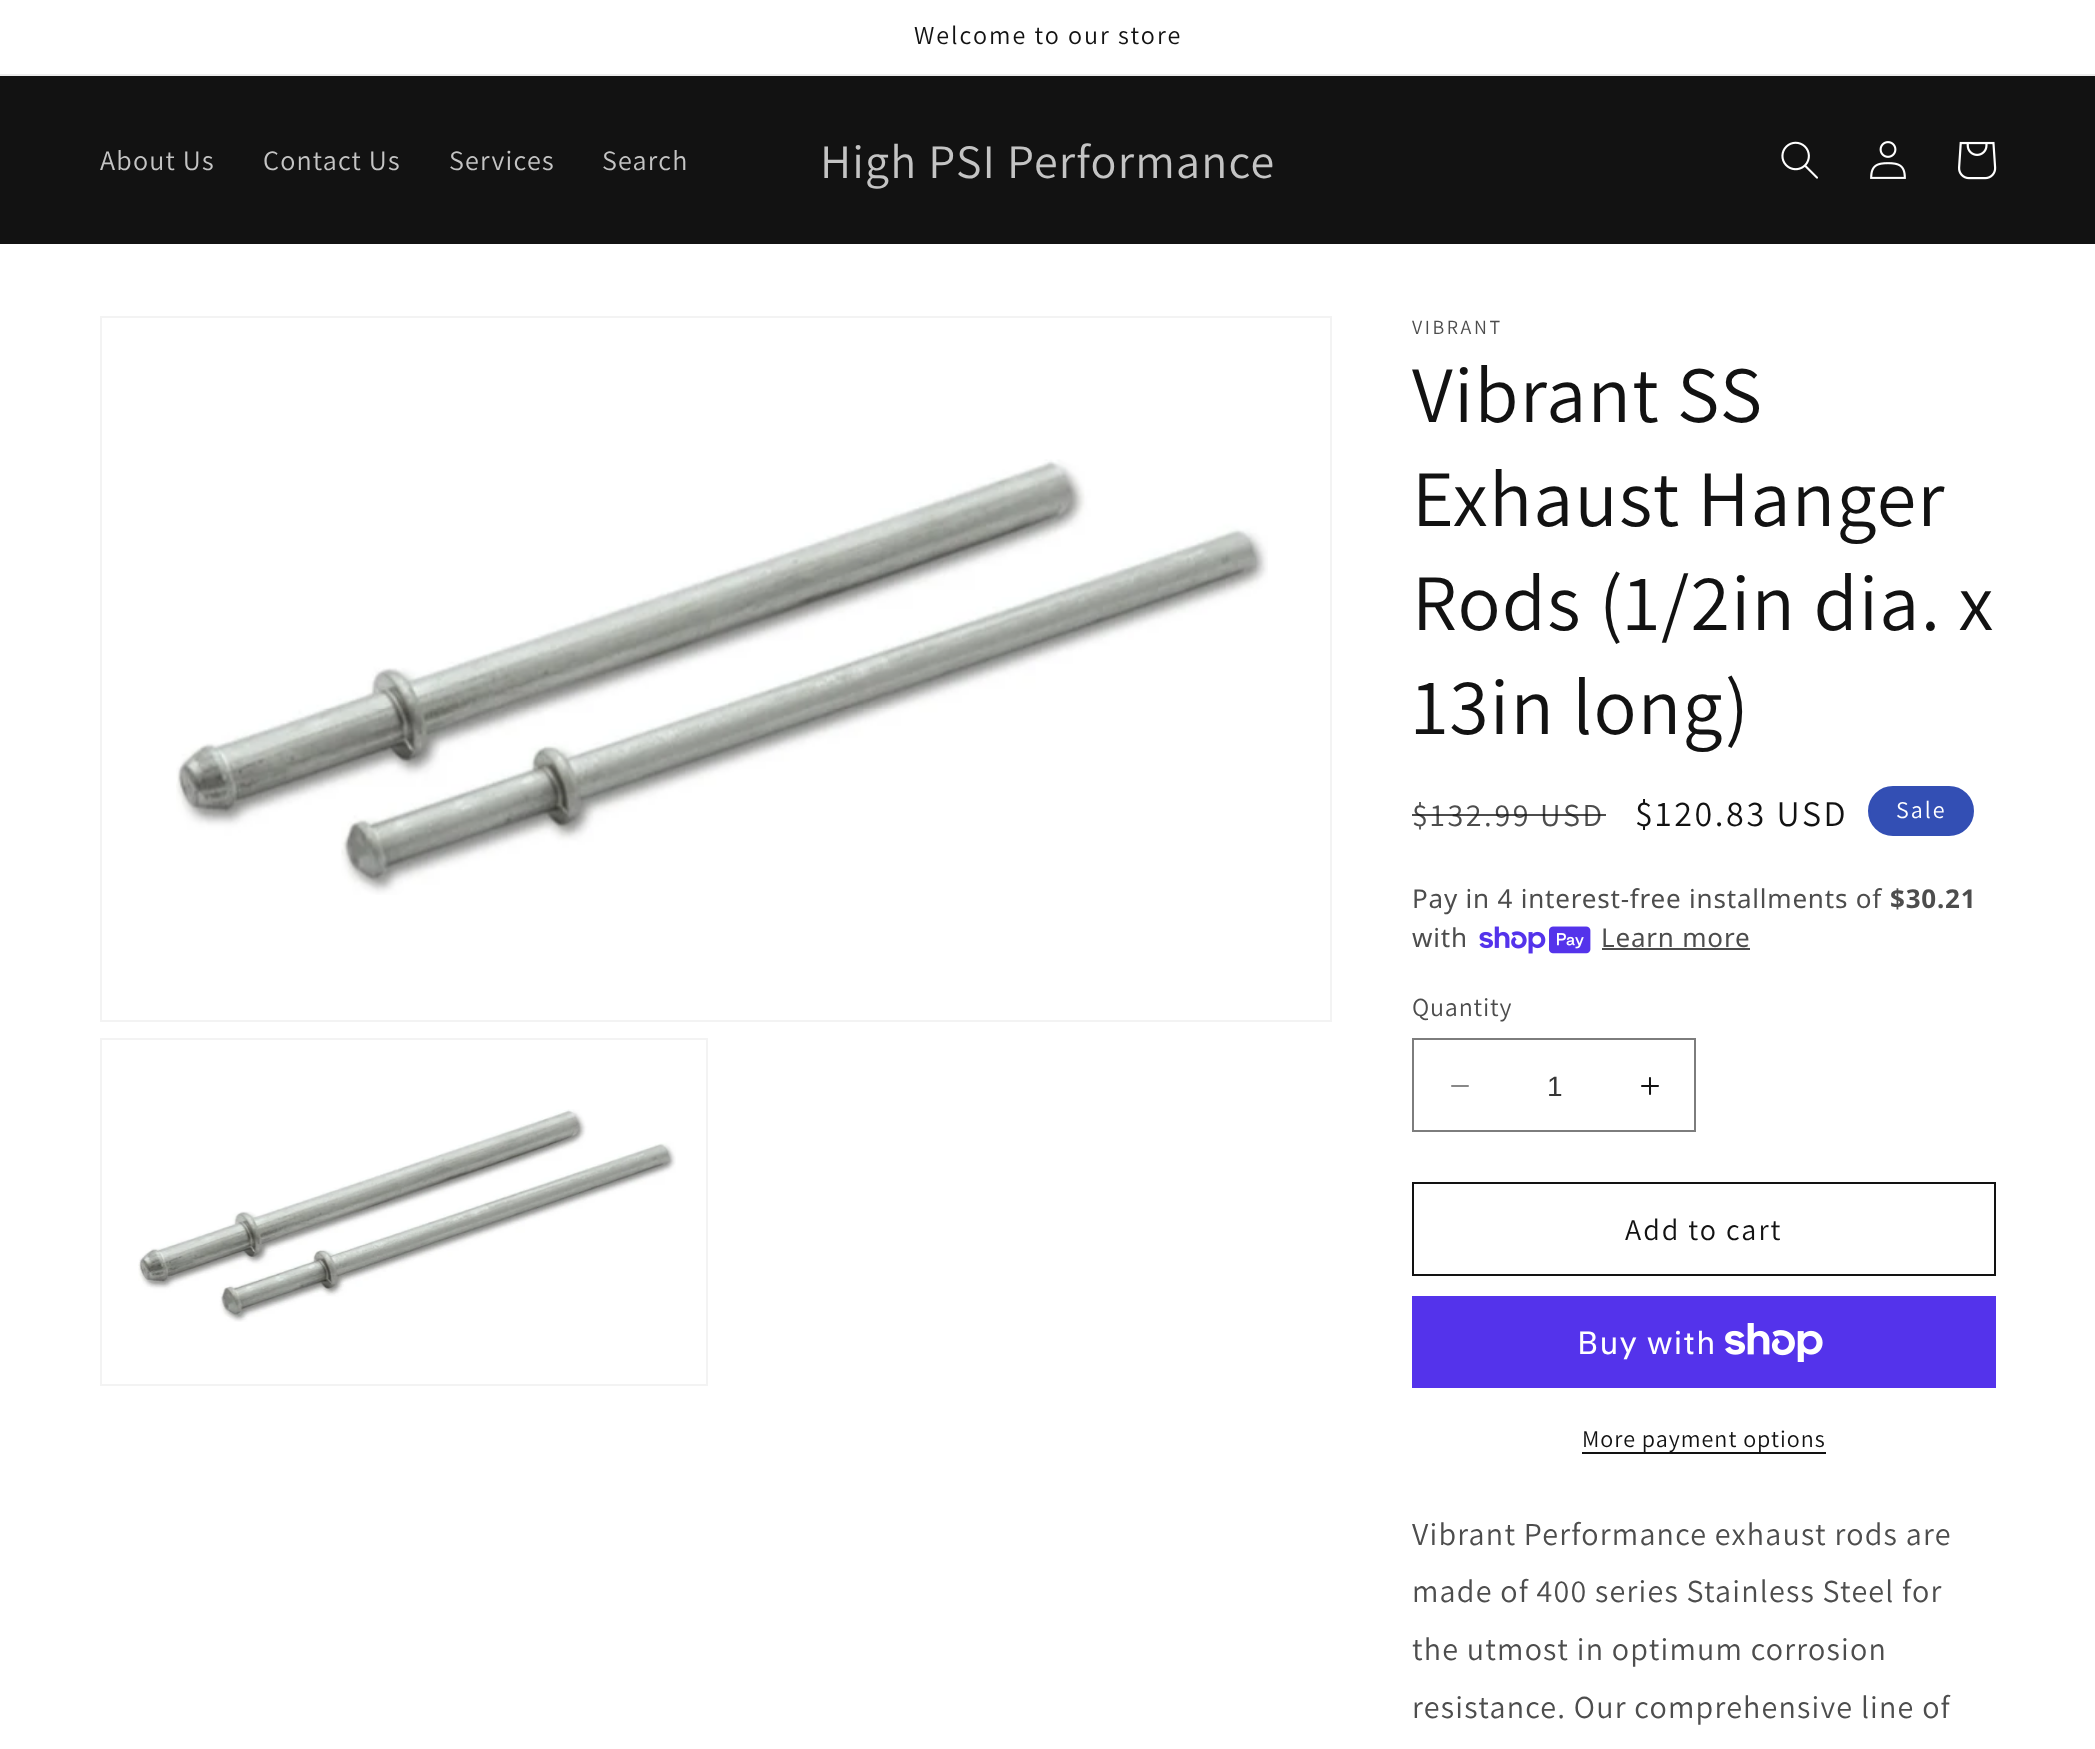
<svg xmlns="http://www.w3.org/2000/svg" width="2095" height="1749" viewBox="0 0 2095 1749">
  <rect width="100%" height="100%" fill="rgb(255,255,255)"/>
  <rect x="0" y="74" width="2095" height="2" fill="rgb(236,236,236)"/>
  <text x="914" y="44" font-family="Assistant" font-size="26" letter-spacing="2" fill="rgb(18,18,18)">Welcome to our store</text>
  <rect x="0" y="76" width="2095" height="168" fill="rgb(18,18,18)"/>
  <g font-family="Assistant" font-size="28" letter-spacing="1.2" fill="rgb(196,196,196)">
    <text x="100" y="170">About Us</text>
    <text x="263" y="170">Contact Us</text>
    <text x="449" y="170">Services</text>
    <text x="602" y="170">Search</text>
  </g>
  <text x="820" y="178" font-family="Assistant" font-size="48" letter-spacing="1.2" fill="rgb(196,196,196)">High PSI Performance</text>
  <image x="1781" y="141" width="37" height="38" href="pic1.png"/>
  <image x="1870" y="141" width="36" height="38" href="pic2.png"/>
  <image x="1958" y="141" width="39" height="39" href="pic3.png"/>
  <rect x="101" y="317" width="1230" height="704" fill="none" stroke="rgb(243,243,243)" stroke-width="2"/>
  <image x="176" y="459" width="1092" height="436" href="pic4.png"/>
  <rect x="101" y="1039" width="606" height="346" fill="none" stroke="rgb(243,243,243)" stroke-width="2"/>
  <image x="138" y="1109" width="538" height="213" href="pic5.png"/>
  <text x="1412" y="334" font-family="Assistant" font-size="20" letter-spacing="2.6" fill="rgb(77,77,77)">VIBRANT</text>
  <g font-family="Assistant" font-size="80" letter-spacing="1.2" fill="rgb(18,18,18)">
    <text>
      <tspan x="1412" y="422">Vibrant SS</tspan>
      <tspan x="1412" y="526">Exhaust Hanger</tspan>
      <tspan x="1412" y="630">Rods (1/2in dia. x</tspan>
      <tspan x="1412" y="734">13in long)</tspan>
    </text>
  </g>
  <text x="1412" y="826" font-family="Assistant" font-size="32" letter-spacing="2.6" fill="rgb(77,77,77)">$132.99 USD</text>
  <rect x="1412" y="814" width="194" height="2" fill="rgba(18,18,18,0.75)"/>
  <text x="1635" y="826" font-family="Assistant" font-size="36" letter-spacing="2.6" fill="rgb(18,18,18)">$120.83 USD</text>
  <rect x="1869" y="787" width="104" height="48" rx="24" fill="rgb(51,79,180)" stroke="rgb(51,79,180)" stroke-width="2"/>
  <text x="1896" y="818" font-family="Assistant" font-size="24" letter-spacing="2" fill="rgb(255,255,255)">Sale</text>
  <text x="1412" y="908" font-family="Noto Sans" font-size="26" letter-spacing="0.8" fill="rgb(77,77,77)">Pay in 4 interest-free installments of</text>
  <text x="1890" y="908" font-family="Noto Sans" font-size="26" font-weight="bold" letter-spacing="0.8" fill="rgb(77,77,77)">$30.21</text>
  <text x="1412" y="947" font-family="Noto Sans" font-size="26" letter-spacing="0.8" fill="rgb(77,77,77)">with</text>
  <image x="1479" y="926" width="112" height="28" href="pic6.png"/>
  <text x="1601" y="947" font-family="Noto Sans" font-size="26" letter-spacing="0.8" fill="rgb(77,77,77)">Learn more</text>
  <rect x="1602" y="948" width="148" height="2" fill="rgb(77,77,77)"/>
  <text x="1412" y="1016" font-family="Assistant" font-size="26" letter-spacing="0.8" fill="rgb(77,77,77)">Quantity</text>
  <image x="1451" y="1085" width="18" height="2" href="pic7.png"/>
  <image x="1641" y="1077" width="18" height="18" href="pic8.png"/>
  <rect x="1413" y="1039" width="282" height="92" fill="none" stroke="rgb(125,125,125)" stroke-width="2"/>
  <text x="1547" y="1096" font-family="Liberation Sans" font-size="28" fill="rgb(54,54,54)">1</text>
  <rect x="1413" y="1183" width="582" height="92" fill="none" stroke="rgb(18,18,18)" stroke-width="2"/>
  <text x="1625" y="1240" font-family="Assistant" font-size="30" letter-spacing="2" fill="rgb(18,18,18)">Add to cart</text>
  <rect x="1412" y="1296" width="584" height="92" fill="rgb(84,51,235)"/>
  <text x="1577" y="1354" font-family="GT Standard" font-size="32" letter-spacing="1.2" fill="rgb(255,255,255)">Buy with</text>
  <image x="1725" y="1323" width="98" height="39" href="pic9.png"/>
  <rect x="1582" y="1452" width="244" height="2" fill="rgb(18,18,18)"/>
  <text x="1582" y="1447" font-family="Assistant" font-size="24" letter-spacing="1" fill="rgb(18,18,18)">More payment options</text>
  <g font-family="Assistant" font-size="32" letter-spacing="1.2" fill="rgb(77,77,77)">
    <text>
      <tspan x="1412" y="1545">Vibrant Performance exhaust rods are</tspan>
      <tspan x="1412" y="1602">made of 400 series Stainless Steel for</tspan>
      <tspan x="1412" y="1660">the utmost in optimum corrosion</tspan>
      <tspan x="1412" y="1718">resistance. Our comprehensive line of</tspan>
    </text>
  </g>
</svg>
